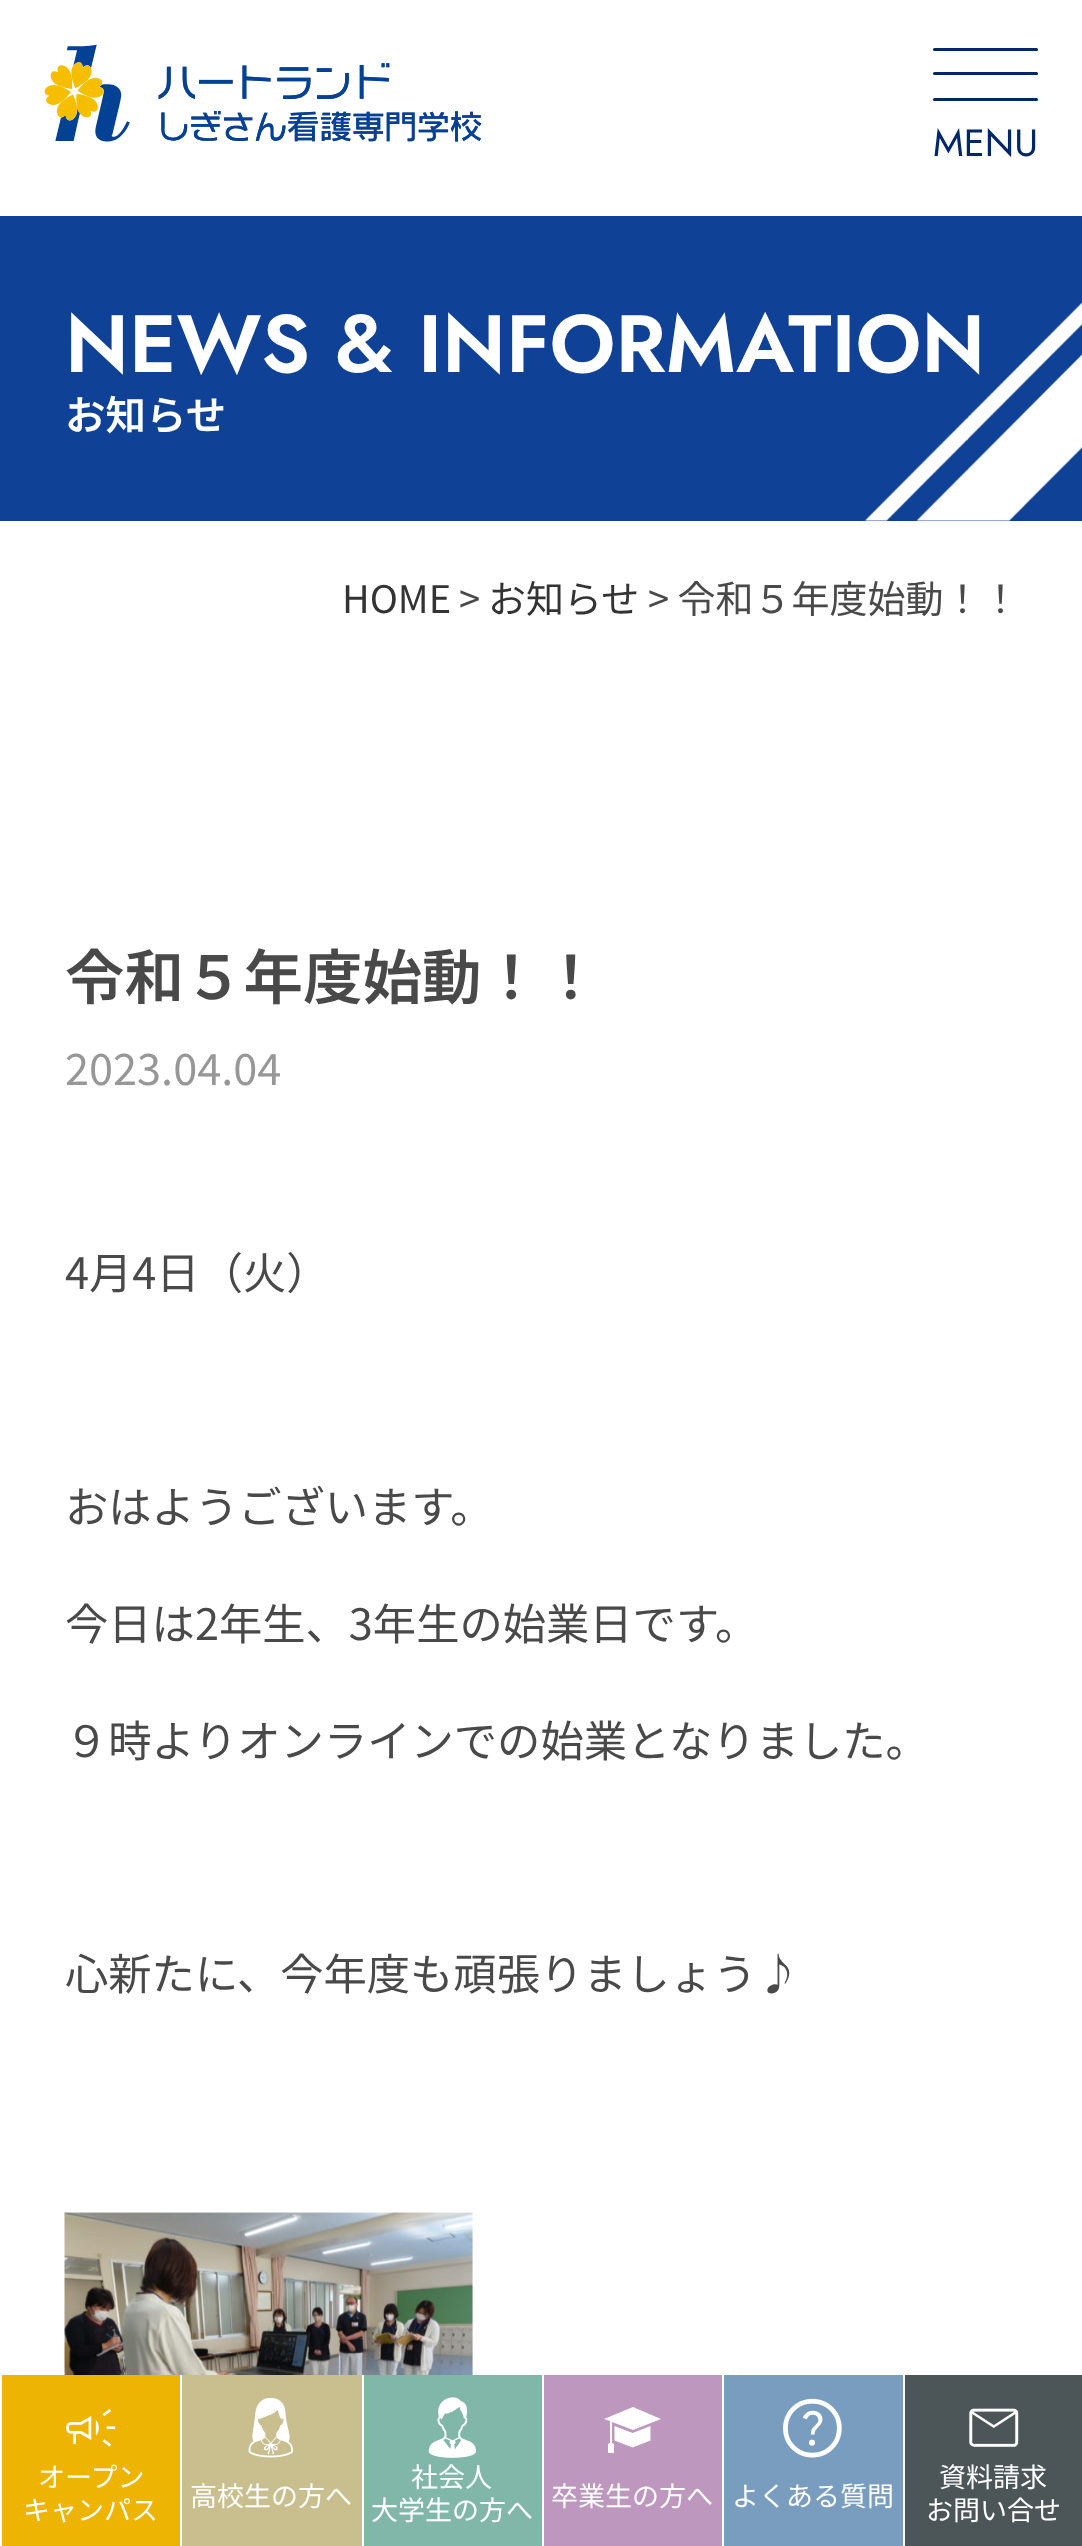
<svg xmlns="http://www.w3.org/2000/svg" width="1082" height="2546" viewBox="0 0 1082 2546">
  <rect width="100%" height="100%" fill="rgb(255,255,255)"/>
  <image x="44" y="44" width="438" height="98" href="pic1.png"/>
  <rect x="933" y="48" width="105" height="3" rx="1.5" fill="rgb(0,39,105)"/>
  <rect x="933" y="72" width="105" height="3" rx="1.5" fill="rgb(0,39,105)"/>
  <rect x="933" y="98" width="105" height="3" rx="1.5" fill="rgb(0,39,105)"/>
  <text x="933" y="156" font-family="Jost" font-size="38" fill="rgb(0,39,105)">MENU</text>
  <rect x="0" y="216" width="1082" height="305" fill="rgb(15,65,150)"/>
  <image x="864" y="302" width="218" height="219" href="pic2.png"/>
  <text x="65" y="372" font-family="Jost" font-size="81.25" font-weight="600" fill="rgb(255,255,255)">NEWS &amp; INFORMATION</text>
  <text x="65" y="430" font-family="Noto Sans JP" font-size="40.5" font-weight="600" fill="rgb(255,255,255)">お知らせ</text>
  <text x="342" y="613" font-family="Noto Sans JP" font-size="38" fill="rgb(51,51,51)">HOME</text>
  <text x="459" y="613" font-family="Noto Sans JP" font-size="38" fill="rgb(73,73,73)">&gt;</text>
  <text x="488" y="613" font-family="Noto Sans JP" font-size="38" fill="rgb(51,51,51)">お知らせ</text>
  <text x="648" y="613" font-family="Noto Sans JP" font-size="38" fill="rgb(73,73,73)">&gt; 令和５年度始動！！</text>
  <text x="65" y="999" font-family="Noto Sans JP" font-size="59.5" font-weight="600" fill="rgb(73,73,73)">令和５年度始動！！</text>
  <text x="65" y="1085" font-family="Noto Sans JP" font-size="43.3" fill="rgb(151,151,151)">2023.04.04</text>
  <g font-family="Noto Sans JP" font-size="43.3" fill="rgb(73,73,73)">
    <text x="65" y="1289">4月4日（火）</text>
    <text x="65" y="1523">おはようございます。</text>
    <text x="65" y="1640">今日は2年生、3年生の始業日です。</text>
    <text x="65" y="1757">９時よりオンラインでの始業となりました。</text>
    <text x="65" y="1990">心新たに、今年度も頑張りましょう♪</text>
  </g>
  <image x="64" y="2212" width="409" height="163" href="pic3.png"/>
  <rect x="2" y="2375" width="178" height="171" fill="rgb(238,180,3)"/>
  <image x="66" y="2409" width="50" height="38" href="pic4.png"/>
  <g font-family="Noto Sans JP" font-size="27" fill="rgb(255,255,255)">
    <text x="38" y="2487">オープン</text>
    <text x="23" y="2520">キャンパス</text>
  </g>
  <rect x="182" y="2375" width="180" height="171" fill="rgb(200,190,142)"/>
  <image x="248" y="2397" width="45" height="61" href="pic5.png"/>
  <text x="190" y="2506" font-family="Noto Sans JP" font-size="27" fill="rgb(255,255,255)">高校生の方へ</text>
  <rect x="364" y="2375" width="178" height="171" fill="rgb(128,183,169)"/>
  <image x="428" y="2397" width="48" height="61" href="pic6.png"/>
  <g font-family="Noto Sans JP" font-size="27" fill="rgb(255,255,255)">
    <text x="411" y="2487">社会人</text>
    <text x="371" y="2520">大学生の方へ</text>
  </g>
  <rect x="544" y="2375" width="178" height="171" fill="rgb(190,151,190)"/>
  <path d="M604 2419L633 2407L661 2419L633 2430L612 2422V2443L614 2444V2453H608V2444L610 2443V2421Z" fill="rgb(255,255,255)"/>
  <path d="M614.5 2426V2440.5L632.5 2447.5L650.5 2440.5V2426L632.5 2433Z" fill="rgb(255,255,255)"/>
  <text x="551" y="2506" font-family="Noto Sans JP" font-size="27" fill="rgb(255,255,255)">卒業生の方へ</text>
  <rect x="724" y="2375" width="179" height="171" fill="rgb(121,157,191)"/>
  <image x="783" y="2398" width="59" height="60" href="pic7.png"/>
  <text x="732" y="2506" font-family="Noto Sans JP" font-size="27" fill="rgb(255,255,255)">よくある質問</text>
  <rect x="905" y="2375" width="177" height="171" fill="rgb(76,85,87)"/>
  <image x="969" y="2408" width="50" height="39" href="pic8.png"/>
  <g font-family="Noto Sans JP" font-size="27" fill="rgb(255,255,255)">
    <text x="939" y="2487">資料請求</text>
    <text x="926" y="2520">お問い合せ</text>
  </g>
</svg>
